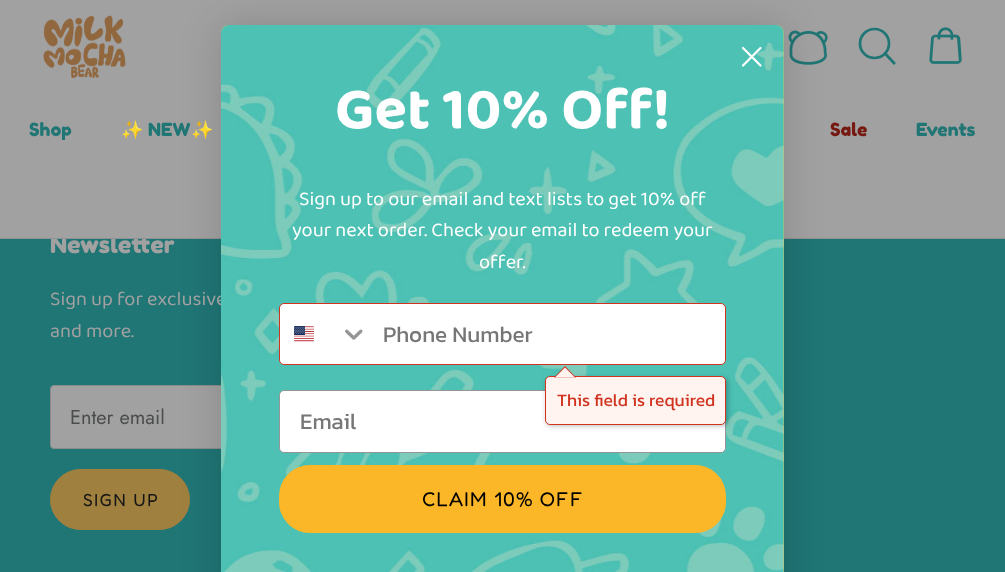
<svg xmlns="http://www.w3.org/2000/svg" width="1005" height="572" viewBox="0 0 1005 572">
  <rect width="100%" height="100%" fill="rgb(32,117,117)"/>
  <rect x="0" y="0" width="1005" height="238" fill="rgb(161,161,161)"/>
  <image x="788" y="30" width="40" height="35" href="pic5.png"/>
  <text x="50" y="253" font-family="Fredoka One" font-size="23.75" fill="rgb(161,161,161)">Newsletter</text>
  <rect x="0" y="238" width="1005" height="1" fill="rgb(142,144,147)"/>
  <rect x="50.5" y="385.5" width="387" height="63" rx="3.5" fill="rgb(161,161,161)" stroke="rgb(139,140,140)"/>
  <rect x="50.5" y="469.5" width="139" height="60" rx="30" fill="rgb(160,128,62)" stroke="rgb(160,128,62)"/>
  <rect x="221" y="25" width="563" height="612" rx="8" fill="rgba(0,0,0,0.15)" filter="blur(19px)"/>
  <text x="50" y="305" font-family="'Baloo 2'" font-size="20" fill="rgb(161,161,161)">Sign up for exclusive</text>
  <path d="M229 25H776C780.5 25 784 28.5 784 33V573H221V33C221 28.5 224.5 25 229 25Z" fill="rgb(241,190,72)"/>
  <image x="221" y="25" width="563" height="547" href="pic1.png"/>
  <path d="M743 48L760.5 65.5M743 65.5L760.5 48Z" fill="none" stroke="rgb(255,255,255)" stroke-width="2.2" stroke-linecap="round" stroke-linejoin="round"/>
  <text x="335" y="128" font-family="'Baloo 2'" font-size="60" font-weight="bold" fill="rgb(255,255,255)">Get 10% Off!</text>
  <g font-family="'Baloo 2'" font-size="20" fill="rgb(255,255,255)">
    <text x="299" y="205">Sign up to our email and text lists to get 10% off</text>
    <text x="292" y="236">your next order. Check your email to redeem your</text>
    <text x="479" y="268">offer.</text>
  </g>
  <rect x="279.5" y="303.5" width="446" height="61" rx="4.5" fill="rgb(255,255,255)" stroke="rgb(208,51,31)"/>
  <image x="294" y="326" width="20" height="16" href="pic2.png"/>
  <image x="345" y="329" width="18" height="11" href="pic3.png"/>
  <text x="383" y="342" font-family="Kanit" font-size="22.5" fill="rgb(118,118,118)">Phone Number</text>
  <rect x="279.5" y="390.5" width="446" height="62" rx="4.5" fill="rgb(255,255,255)" stroke="rgb(148,149,150)"/>
  <rect x="546" y="378" width="182" height="48" rx="5" fill="rgba(0,0,0,0.26)" filter="blur(2.5px)"/>
  <rect x="545.5" y="376.5" width="180" height="48" rx="4.5" fill="rgb(255,244,240)" stroke="rgb(208,51,31)"/>
  <path d="M576 377.5H554L565 366Z" fill="rgb(208,51,31)"/>
  <path d="M575 377.5H555L565 367.5Z" fill="rgb(255,244,240)"/>
  <text x="557" y="406" font-family="Kanit" font-size="17.5" fill="rgb(208,51,31)">This field is required</text>
  <text x="300" y="429" font-family="Kanit" font-size="22.5" fill="rgb(118,118,118)">Email</text>
  <rect x="279" y="465" width="447" height="68" rx="31" fill="rgb(252,183,40)"/>
  <text x="422" y="506" font-family="Fredoka" font-size="20" font-weight="300" letter-spacing="1.25" fill="rgb(0,0,0)">CLAIM 10% OFF</text>
  <image x="43" y="15" width="83" height="63" href="pic4.png"/>
  <circle cx="874.5" cy="43.5" r="14.5" fill="none" stroke="rgb(32,117,117)" stroke-width="2.7"/>
  <path d="M886 54.5L894 63" fill="none" stroke="rgb(32,117,117)" stroke-width="2.7" stroke-linecap="square"/>
  <image x="929" y="27" width="33" height="37" href="pic6.png"/>
  <text x="29" y="136" font-family="Fredoka One" font-size="18" fill="rgb(32,117,117)">Shop</text>
  <text x="121" y="136" font-family="Noto Color Emoji" font-size="18" fill="rgb(32,117,117)">✨</text>
  <text x="148" y="136" font-family="Fredoka One" font-size="18" fill="rgb(32,117,117)">NEW</text>
  <text x="191" y="136" font-family="Noto Color Emoji" font-size="18" fill="rgb(32,117,117)">✨</text>
  <text x="830" y="136" font-family="Fredoka One" font-size="18" fill="rgb(117,25,17)">Sale</text>
  <text x="916" y="136" font-family="Fredoka One" font-size="18" fill="rgb(32,117,117)">Events</text>
  <text x="50" y="337" font-family="'Baloo 2'" font-size="20" fill="rgb(161,161,161)">and more.</text>
  <text x="70" y="424" font-family="Jost" font-size="20" fill="rgb(75,76,77)">Enter email</text>
  <text x="83" y="506" font-family="Fredoka" font-size="17.5" font-weight="300" letter-spacing="1.5" fill="rgb(22,22,22)">SIGN UP</text>
</svg>
